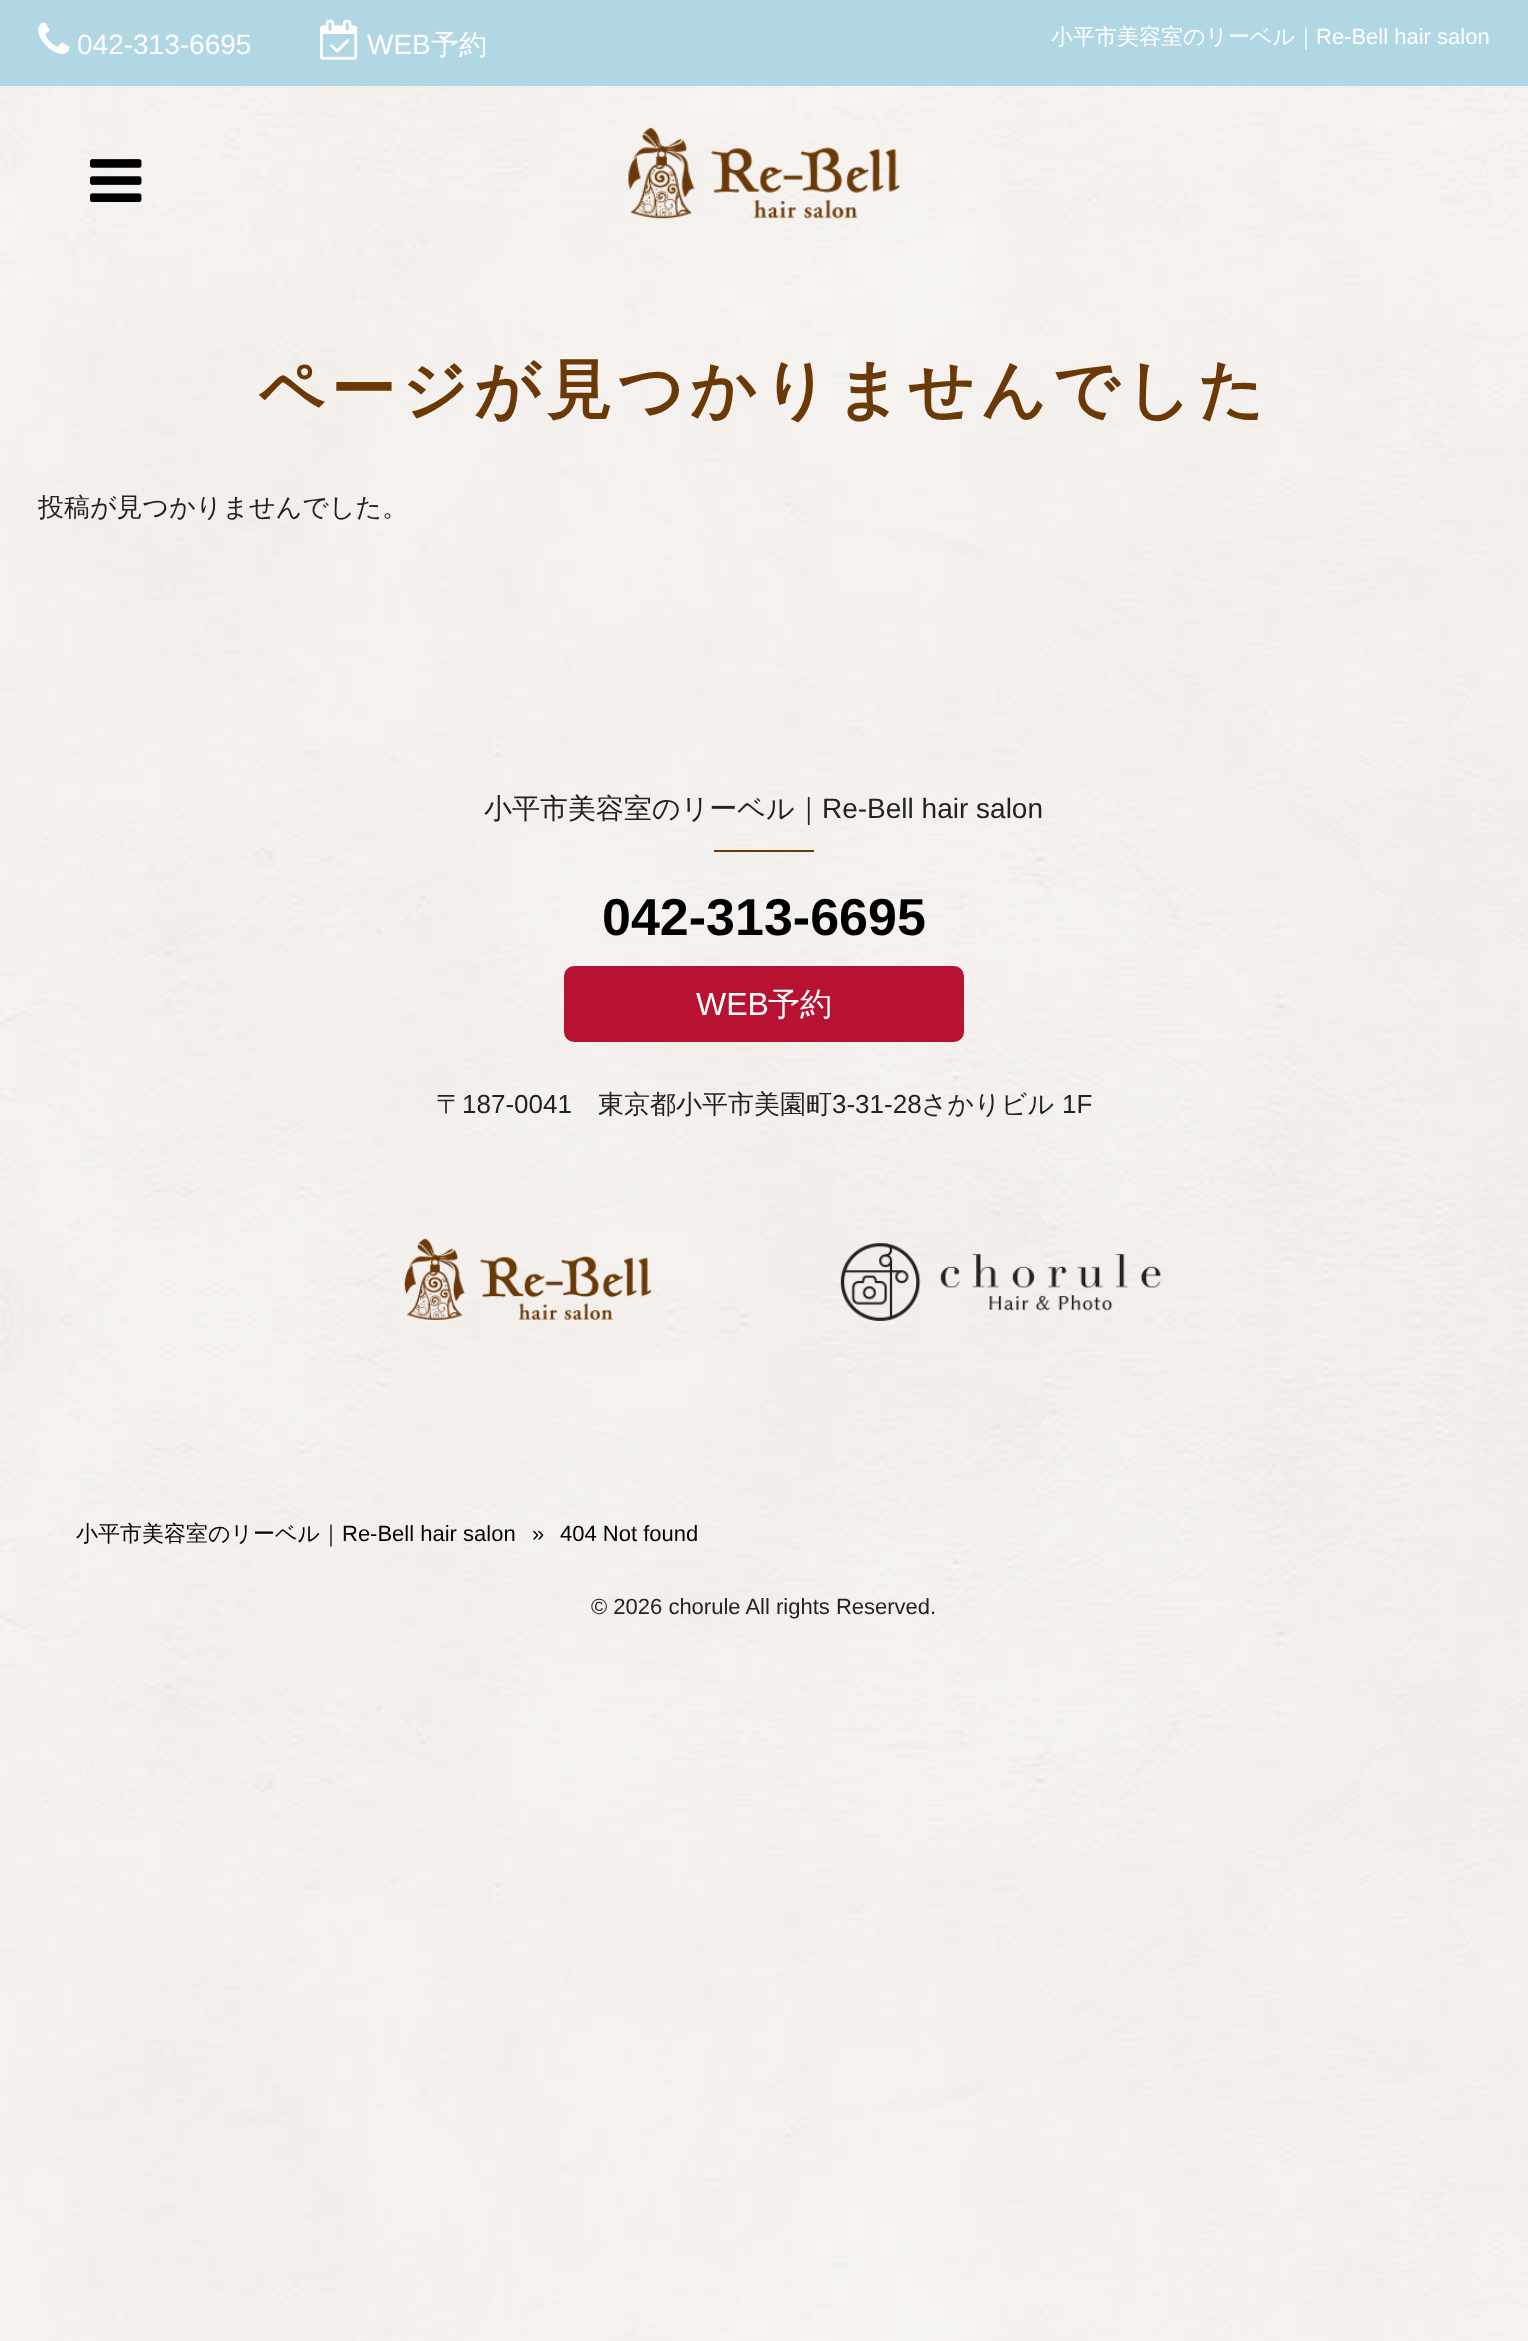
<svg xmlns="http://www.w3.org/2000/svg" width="1528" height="2341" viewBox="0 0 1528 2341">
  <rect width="100%" height="100%" fill="rgb(255,255,255)"/>
  <image x="0" y="86" width="1528" height="2255" href="pic1.png"/>
  <rect x="0" y="0" width="1528" height="86" fill="rgb(177,215,228)"/>
  <image x="38" y="22" width="32" height="32" href="pic2.png"/>
  <text x="77" y="54" font-family="Liberation Sans" font-size="28" fill="rgb(255,255,255)">042-313-6695</text>
  <image x="320" y="19" width="38" height="41" href="pic3.png"/>
  <text x="367" y="54" font-family="Liberation Sans" font-size="28" fill="rgb(255,255,255)">WEB</text>
  <text x="431" y="54" font-family="WenQuanYi Zen Hei" font-size="28" font-weight="500" fill="rgb(255,255,255)">予約</text>
  <text x="1051" y="44" font-family="WenQuanYi Zen Hei" font-size="22" font-weight="500" fill="rgb(255,255,255)">小平市美容室のリーベル｜</text>
  <text x="1316" y="44" font-family="Liberation Sans" font-size="22" fill="rgb(255,255,255)">Re-Bell hair salon</text>
  <image x="90" y="159" width="52" height="43" href="pic4.png"/>
  <image x="628" y="127" width="272" height="92" href="pic5.png"/>
  <text x="258" y="412" font-family="WenQuanYi Zen Hei" font-size="65" font-weight="bold" letter-spacing="6" fill="rgb(106,57,6)">ページが見つかりませんでした</text>
  <text x="38" y="516" font-family="WenQuanYi Zen Hei" font-size="26" font-weight="500" fill="rgb(34,34,34)">投稿が見つかりませんでした。</text>
  <text x="484" y="818" font-family="WenQuanYi Zen Hei" font-size="28" font-weight="500" fill="rgb(34,34,34)">小平市美容室のリーベル｜</text>
  <text x="822" y="818" font-family="Liberation Sans" font-size="28" fill="rgb(34,34,34)">Re-Bell hair salon</text>
  <rect x="714" y="850" width="100" height="2" fill="rgb(106,57,6)"/>
  <text x="602" y="935" font-family="Liberation Sans" font-size="52" font-weight="bold" fill="rgb(0,0,0)">042-313-6695</text>
  <rect x="564" y="966" width="400" height="76" rx="10" fill="rgb(183,18,50)"/>
  <text x="696" y="1015" font-family="Liberation Sans" font-size="32" fill="rgb(255,255,255)">WEB</text>
  <text x="768" y="1015" font-family="WenQuanYi Zen Hei" font-size="32" font-weight="500" fill="rgb(255,255,255)">予約</text>
  <text x="436" y="1113" font-family="WenQuanYi Zen Hei" font-size="26" font-weight="500" fill="rgb(34,34,34)">〒</text>
  <text x="462" y="1113" font-family="Liberation Sans" font-size="26" fill="rgb(34,34,34)">187-0041</text>
  <text x="598" y="1113" font-family="WenQuanYi Zen Hei" font-size="26" font-weight="500" fill="rgb(34,34,34)">東京都小平市美園町</text>
  <text x="832" y="1113" font-family="Liberation Sans" font-size="26" fill="rgb(34,34,34)">3-31-28</text>
  <text x="921" y="1113" font-family="WenQuanYi Zen Hei" font-size="26" font-weight="500" fill="rgb(34,34,34)">さかりビル</text>
  <text x="1062" y="1113" font-family="Liberation Sans" font-size="26" fill="rgb(34,34,34)">1F</text>
  <image x="404" y="1238" width="248" height="82" href="pic6.png"/>
  <image x="840" y="1243" width="321" height="78" href="pic7.png"/>
  <text x="76" y="1541" font-family="WenQuanYi Zen Hei" font-size="22" font-weight="500" fill="rgb(0,0,0)">小平市美容室のリーベル｜</text>
  <g font-family="Liberation Sans" font-size="22" fill="rgb(0,0,0)">
    <text x="342" y="1541">Re-Bell hair salon</text>
    <text x="532" y="1541">»</text>
    <text x="560" y="1541">404 Not found</text>
  </g>
  <text x="591" y="1614" font-family="Liberation Sans" font-size="22" fill="rgb(34,34,34)">© 2026 chorule All rights Reserved.</text>
</svg>
